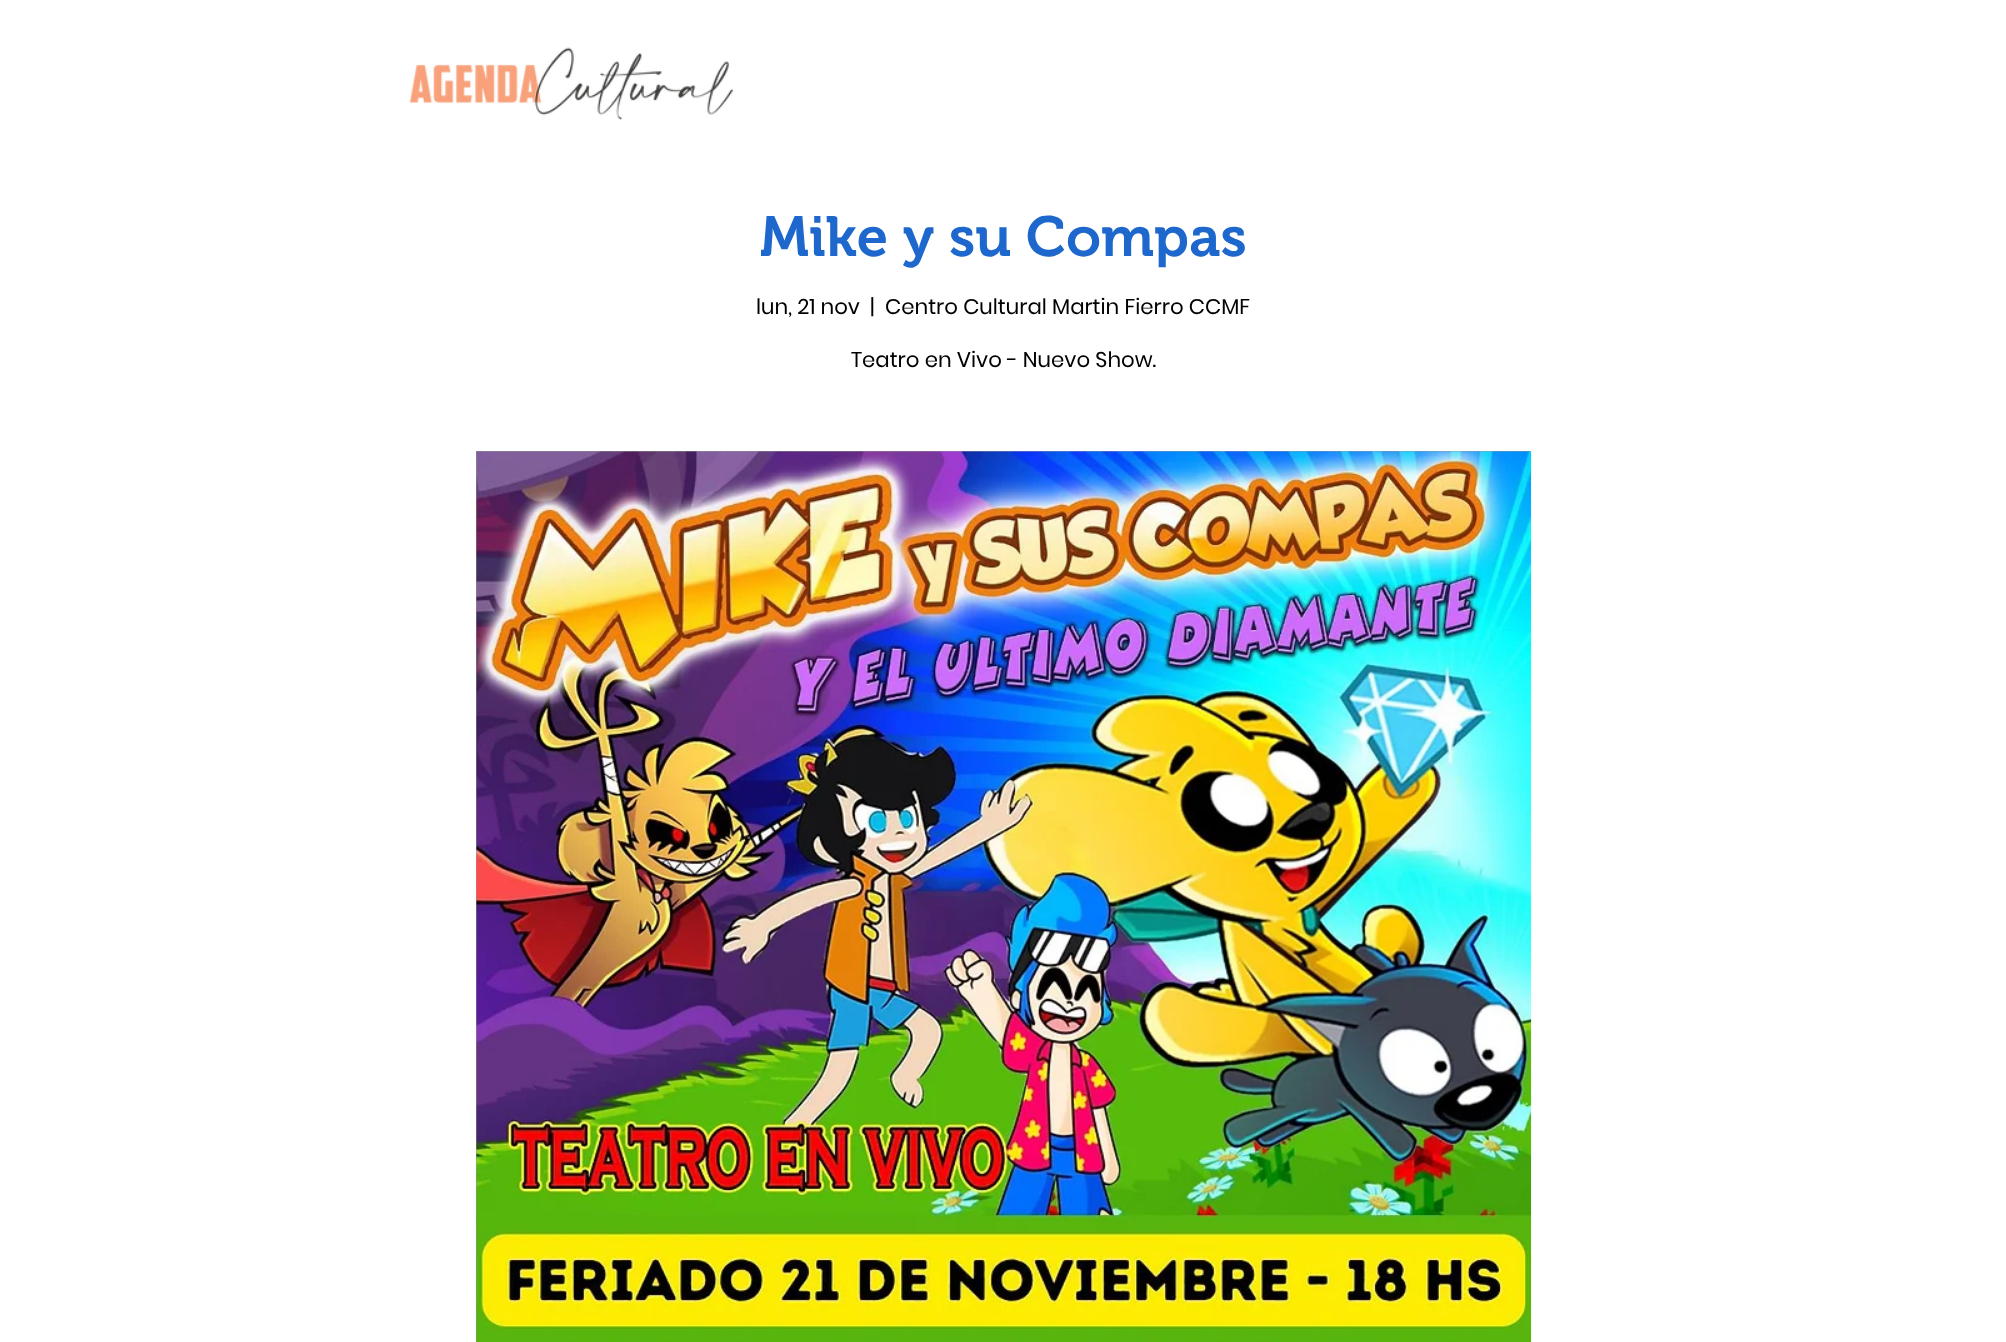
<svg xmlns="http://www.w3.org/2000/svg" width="2006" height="1342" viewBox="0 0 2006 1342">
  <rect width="100%" height="100%" fill="#ffffff"/>
  <image x="409" y="47" width="325" height="74" href="img1.png"/>
  <text x="760" y="256" font-family="'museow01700'" font-size="56.25" font-weight="600" fill="#1d67cd">Mike y su Compas</text>
  <text x="756" y="314" font-family="Poppins" font-size="21.25" fill="#000000">lun, 21 nov</text>
  <text x="870" y="314" font-family="Poppins" font-size="21.25" fill="#000000">|</text>
  <text x="885" y="314" font-family="Poppins" font-size="21.25" fill="#000000">Centro Cultural Martin Fierro CCMF</text>
  <text x="851" y="367" font-family="Poppins" font-size="21.25" fill="#000000">Teatro en Vivo - Nuevo Show.</text>
  <rect x="476" y="451" width="1055" height="891" fill="#999999"/>
  <image x="476" y="451" width="1056" height="891" href="img2.png"/>
</svg>
